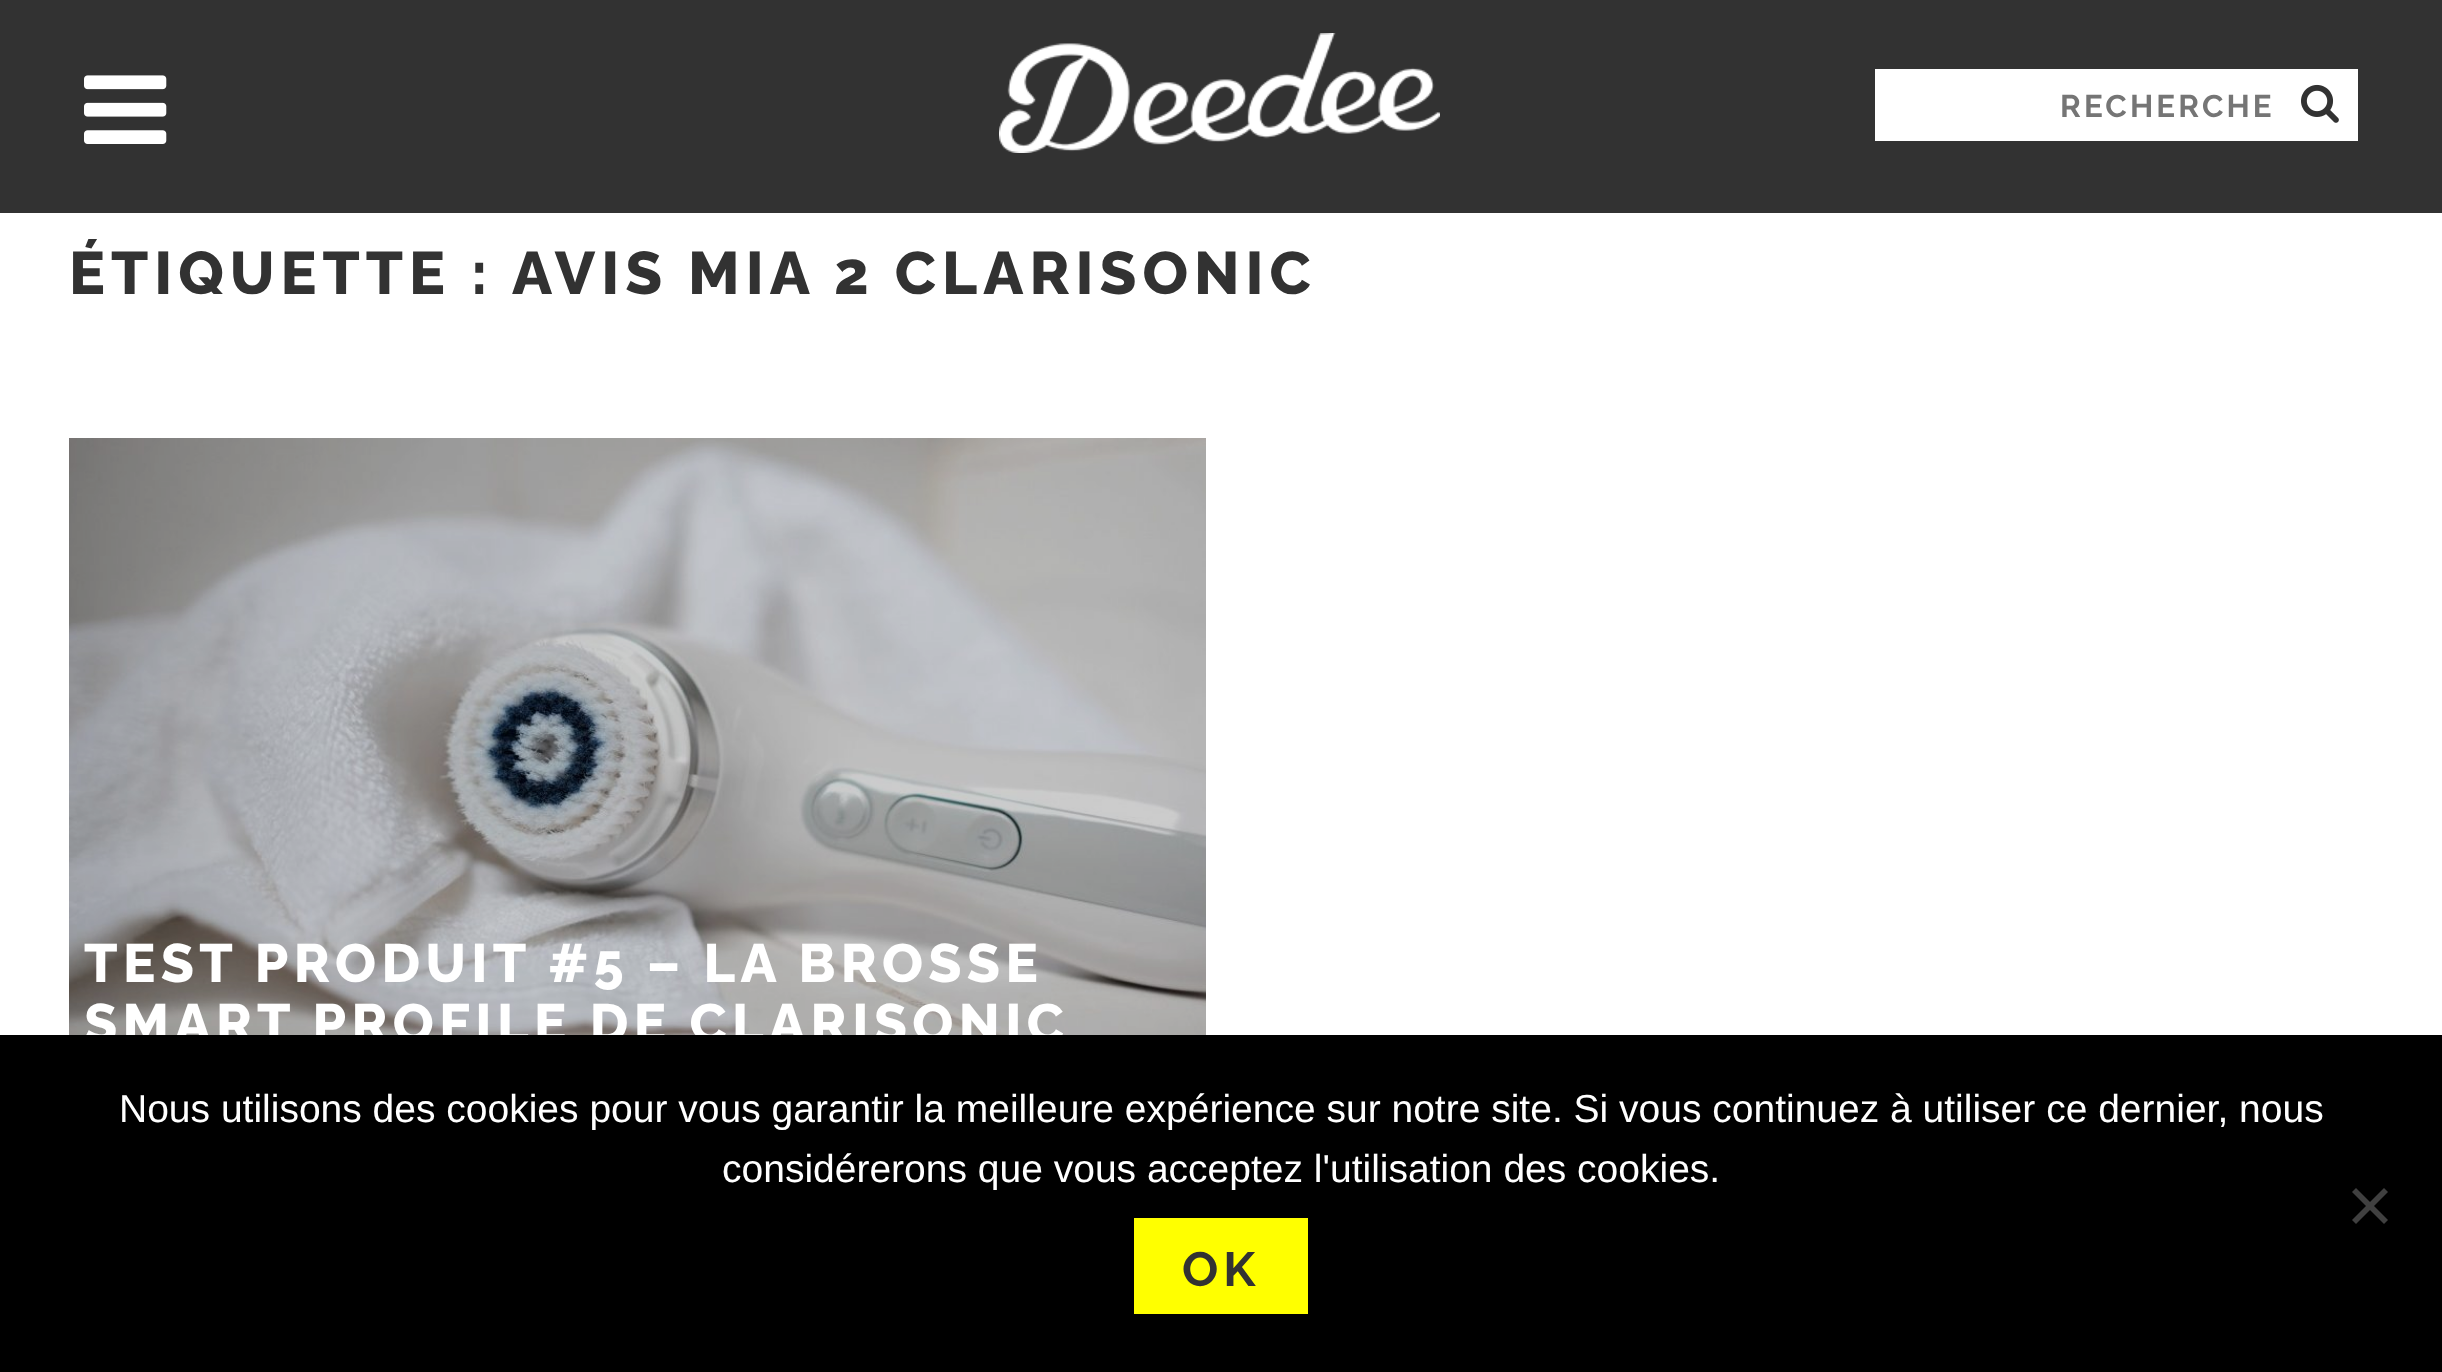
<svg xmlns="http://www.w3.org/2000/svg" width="2442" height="1372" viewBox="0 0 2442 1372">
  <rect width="100%" height="100%" fill="#323232"/>
  <image x="84" y="75" width="83" height="69" href="img1.png"/>
  <image x="999" y="33" width="441" height="120" href="img2.png"/>
  <rect x="1875" y="69" width="483" height="72" fill="#ffffff"/>
  <text x="2060" y="117" font-family="Raleway" font-size="31.25" font-weight="bold" letter-spacing="3.1" fill="#757575">RECHERCHE</text>
  <image x="2301" y="84" width="38" height="39" href="img3.png"/>
  <rect x="0" y="213" width="2442" height="822" fill="#ffffff"/>
  <text x="69" y="294" font-family="Raleway" font-size="60" font-weight="800" letter-spacing="6" fill="#323232">ÉTIQUETTE :</text>
  <text x="512" y="294" font-family="Raleway" font-size="60" font-weight="800" letter-spacing="6" fill="#323232">AVIS MIA 2 CLARISONIC</text>
  <image x="69" y="438" width="1137" height="597" href="img4.png"/>
  <text x="84" y="982" font-family="Raleway" font-size="54" font-weight="800" letter-spacing="5.4" fill="#ffffff">TEST PRODUIT #5 – LA BROSSE</text>
  <text x="84" y="1042" font-family="Raleway" font-size="54" font-weight="800" letter-spacing="5.4" fill="#ffffff">SMART PROFILE DE CLARISONIC</text>
  <rect x="0" y="1035" width="2442" height="337" fill="#000000"/>
  <text x="119" y="1122" font-family="Liberation Sans" font-size="39" fill="#ffffff">Nous utilisons des cookies pour vous garantir la meilleure expérience sur notre site. Si vous continuez à utiliser ce dernier, nous</text>
  <text x="722" y="1182" font-family="Liberation Sans" font-size="39" fill="#ffffff">considérerons que vous acceptez l'utilisation des cookies.</text>
  <path d="M2384 1188L2388 1192L2356 1224L2352 1220Z" fill="#404040"/>
  <path d="M2352 1192L2356 1188L2388 1220L2384 1224Z" fill="#404040"/>
  <rect x="1134" y="1218" width="174" height="96" fill="#ffff00"/>
  <text x="1182" y="1286" font-family="Raleway" font-size="48" font-weight="bold" letter-spacing="5" fill="#323232">OK</text>
</svg>
